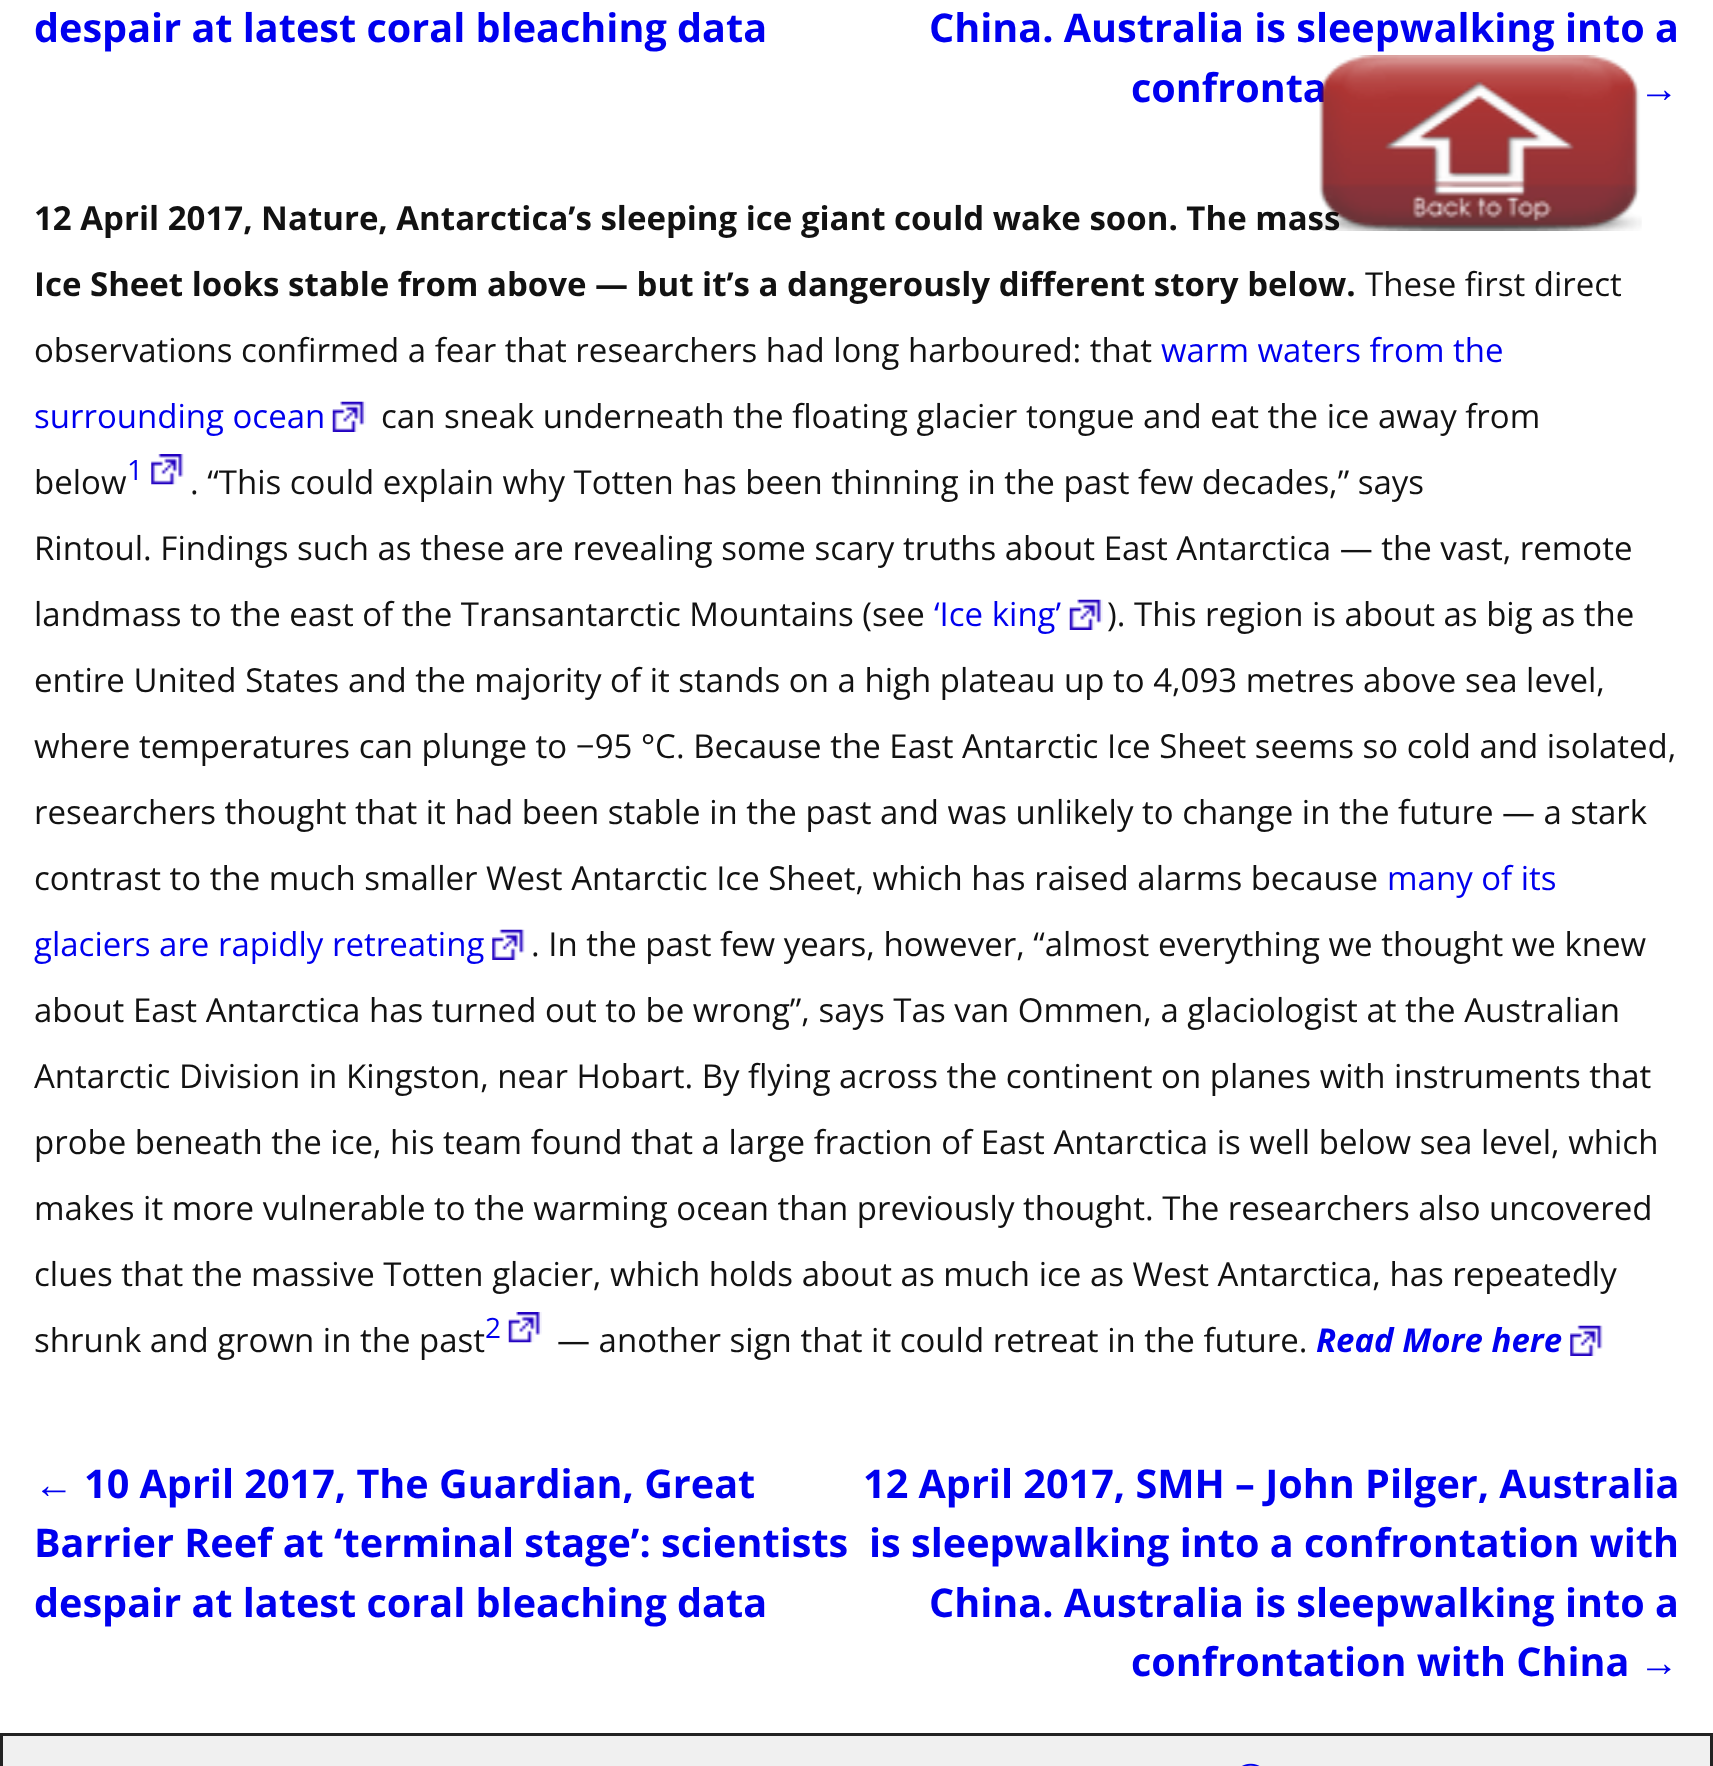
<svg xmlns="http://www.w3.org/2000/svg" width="1713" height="1766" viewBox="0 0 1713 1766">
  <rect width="100%" height="100%" fill="#ffffff"/>
  <text x="34" y="42" font-family="Open Sans" font-size="39.6" font-weight="bold" fill="#0000ee">despair at latest coral bleaching data</text>
  <text x="929" y="42" font-family="Open Sans" font-size="39.6" font-weight="bold" fill="#0000ee">China. Australia is sleepwalking into a</text>
  <text x="1131" y="102" font-family="Open Sans" font-size="39.6" font-weight="bold" fill="#0000ee">confronta</text>
  <text x="1639" y="102" font-family="Liberation Sans" font-size="39.6" fill="#0000ee">→</text>
  <text x="34" y="230" font-family="Open Sans" font-size="33" font-weight="bold" fill="#121212">12 April 2017, Nature, Antarctica’s sleeping ice giant could wake soon. The mass</text>
  <text x="34" y="296" font-family="Open Sans" font-size="33" font-weight="bold" fill="#121212">Ice Sheet looks stable from above — but it’s a dangerously different story below.</text>
  <text x="1365" y="296" font-family="Open Sans" font-size="33" fill="#121212">These first direct</text>
  <text x="34" y="362" font-family="Open Sans" font-size="33" fill="#121212">observations confirmed a fear that researchers had long harboured: that</text>
  <text x="1161" y="362" font-family="Open Sans" font-size="33" fill="#0000ee">warm waters from the</text>
  <text x="34" y="428" font-family="Open Sans" font-size="33" fill="#0000ee">surrounding ocean</text>
  <image x="332" y="401" width="34" height="31" href="img1.png"/>
  <text x="381" y="428" font-family="Open Sans" font-size="33" fill="#121212">can sneak underneath the floating glacier tongue and eat the ice away from</text>
  <text x="34" y="494" font-family="Open Sans" font-size="33" fill="#121212">below</text>
  <text x="127" y="480" font-family="Open Sans" font-size="28" fill="#0000ee">1</text>
  <image x="151" y="454" width="33" height="31" href="img2.png"/>
  <text x="190" y="494" font-family="Open Sans" font-size="33" fill="#121212">. “This could explain why Totten has been thinning in the past few decades,” says</text>
  <text x="34" y="560" font-family="Open Sans" font-size="33" fill="#121212">Rintoul. Findings such as these are revealing some scary truths about East Antarctica — the vast, remote</text>
  <text x="34" y="626" font-family="Open Sans" font-size="33" fill="#121212">landmass to the east of the Transantarctic Mountains (see</text>
  <text x="934" y="626" font-family="Open Sans" font-size="33" fill="#0000ee">‘Ice king’</text>
  <image x="1069" y="599" width="34" height="31" href="img3.png"/>
  <text x="1107" y="626" font-family="Open Sans" font-size="33" fill="#121212">). This region is about as big as the</text>
  <text x="34" y="692" font-family="Open Sans" font-size="33" fill="#121212">entire United States and the majority of it stands on a high plateau up to 4,093 metres above sea level,</text>
  <text x="34" y="758" font-family="Open Sans" font-size="33" fill="#121212">where temperatures can plunge to −95 °C. Because the East Antarctic Ice Sheet seems so cold and isolated,</text>
  <text x="34" y="824" font-family="Open Sans" font-size="33" fill="#121212">researchers thought that it had been stable in the past and was unlikely to change in the future — a stark</text>
  <text x="34" y="890" font-family="Open Sans" font-size="33" fill="#121212">contrast to the much smaller West Antarctic Ice Sheet, which has raised alarms because</text>
  <text x="1387" y="890" font-family="Open Sans" font-size="33" fill="#0000ee">many of its</text>
  <text x="34" y="956" font-family="Open Sans" font-size="33" fill="#0000ee">glaciers are rapidly retreating</text>
  <image x="492" y="929" width="33" height="31" href="img4.png"/>
  <text x="531" y="956" font-family="Open Sans" font-size="33" fill="#121212">. In the past few years, however, “almost everything we thought we knew</text>
  <text x="34" y="1022" font-family="Open Sans" font-size="33" fill="#121212">about East Antarctica has turned out to be wrong”, says Tas van Ommen, a glaciologist at the Australian</text>
  <text x="34" y="1088" font-family="Open Sans" font-size="33" fill="#121212">Antarctic Division in Kingston, near Hobart. By flying across the continent on planes with instruments that</text>
  <text x="34" y="1154" font-family="Open Sans" font-size="33" fill="#121212">probe beneath the ice, his team found that a large fraction of East Antarctica is well below sea level, which</text>
  <text x="34" y="1220" font-family="Open Sans" font-size="33" fill="#121212">makes it more vulnerable to the warming ocean than previously thought. The researchers also uncovered</text>
  <text x="34" y="1286" font-family="Open Sans" font-size="33" fill="#121212">clues that the massive Totten glacier, which holds about as much ice as West Antarctica, has repeatedly</text>
  <text x="34" y="1352" font-family="Open Sans" font-size="33" fill="#121212">shrunk and grown in the past</text>
  <text x="485" y="1338" font-family="Open Sans" font-size="28" fill="#0000ee">2</text>
  <image x="508" y="1312" width="34" height="31" href="img5.png"/>
  <text x="557" y="1352" font-family="Open Sans" font-size="33" fill="#121212">— another sign that it could retreat in the future.</text>
  <text x="1316" y="1352" font-family="Open Sans" font-size="33" font-weight="bold" font-style="italic" fill="#0000ee">Read More here</text>
  <image x="1570" y="1325" width="33" height="31" href="img6.png"/>
  <text x="34" y="1498" font-family="Liberation Sans" font-size="39.6" fill="#0000ee">←</text>
  <text x="84" y="1498" font-family="Open Sans" font-size="39.6" font-weight="bold" fill="#0000ee">10 April 2017, The Guardian, Great</text>
  <text x="34" y="1557" font-family="Open Sans" font-size="39.6" font-weight="bold" fill="#0000ee">Barrier Reef at ‘terminal stage’: scientists</text>
  <text x="34" y="1617" font-family="Open Sans" font-size="39.6" font-weight="bold" fill="#0000ee">despair at latest coral bleaching data</text>
  <text x="863" y="1498" font-family="Open Sans" font-size="39.6" font-weight="bold" fill="#0000ee">12 April 2017, SMH – John Pilger, Australia</text>
  <text x="869" y="1557" font-family="Open Sans" font-size="39.6" font-weight="bold" fill="#0000ee">is sleepwalking into a confrontation with</text>
  <text x="929" y="1617" font-family="Open Sans" font-size="39.6" font-weight="bold" fill="#0000ee">China. Australia is sleepwalking into a</text>
  <text x="1131" y="1676" font-family="Open Sans" font-size="39.6" font-weight="bold" fill="#0000ee">confrontation with China</text>
  <text x="1639" y="1676" font-family="Liberation Sans" font-size="39.6" fill="#0000ee">→</text>
  <rect x="1.5" y="1734.5" width="1710" height="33" fill="#f0f0f0" stroke="#222222" stroke-width="3"/>
  <image x="1242" y="1763" width="18" height="3" href="img7.png"/>
  <image x="1311" y="55" width="331" height="176" href="img8.png"/>
</svg>
